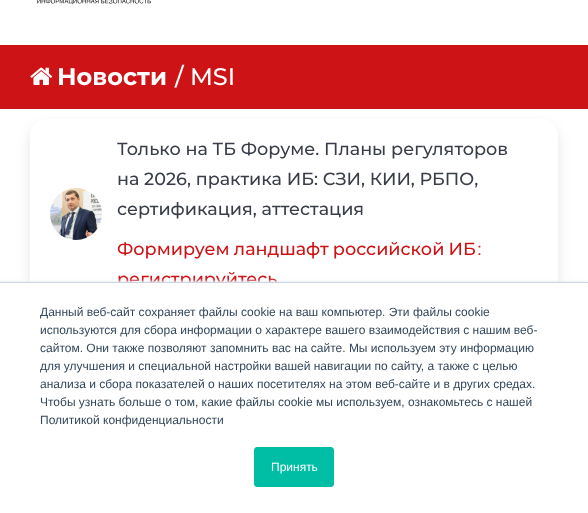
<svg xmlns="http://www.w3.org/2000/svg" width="588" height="513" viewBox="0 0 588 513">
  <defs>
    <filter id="blur1" x="-50%" y="-200%" width="200%" height="500%"><feGaussianBlur stdDeviation="4"/></filter>
    <filter id="blur2" x="-50%" y="-200%" width="200%" height="500%"><feGaussianBlur stdDeviation="8"/></filter>
    <filter id="blur3" x="-50%" y="-200%" width="200%" height="500%"><feGaussianBlur stdDeviation="1.5"/></filter>
  </defs>
  <rect width="100%" height="100%" fill="#ffffff"/>
  <image x="37" y="0" width="114" height="5" href="img1.png"/>
  <rect x="0" y="45" width="588" height="64" fill="#cd1316"/>
  <image x="30" y="67" width="23" height="18" href="img2.png"/>
  <text x="57" y="85" font-family="Montserrat" font-size="24" font-weight="bold" fill="#ffffff">Новости</text>
  <text x="175" y="85" font-family="Montserrat" font-size="24" font-weight="500" fill="#ffffff">/ MSI</text>
  <rect x="30" y="123" width="528" height="190" rx="16" fill="#222326" fill-opacity="0.05" filter="url(#blur1)"/>
  <rect x="30" y="127" width="528" height="190" rx="16" fill="#222326" fill-opacity="0.05" filter="url(#blur2)"/>
  <rect x="30" y="119" width="528" height="190" rx="16" fill="#ffffff"/>
  <image x="50" y="188" width="52" height="52" href="img3.png"/>
  <text x="117" y="155" font-family="Montserrat" font-size="17.6" font-weight="500" fill="#383d47">Только на ТБ Форуме. Планы регуляторов</text>
  <text x="117" y="185" font-family="Montserrat" font-size="17.6" font-weight="500" fill="#383d47">на 2026, практика ИБ: СЗИ, КИИ, РБПО,</text>
  <text x="117" y="215" font-family="Montserrat" font-size="17.6" font-weight="500" fill="#383d47">сертификация, аттестация</text>
  <text x="117" y="255" word-spacing="-0.5" font-family="Montserrat" font-size="17.6" font-weight="500" fill="#cd1316">Формируем ландшафт российской ИБ</text>
  <text x="477" y="255" font-family="Liberation Sans" font-size="17.6" fill="#cd1316">:</text>
  <text x="117" y="285" font-family="Montserrat" font-size="17.6" font-weight="500" fill="#cd1316">регистрируйтесь</text>
  <rect x="0" y="281" width="588" height="231" fill="#eaf0f6" filter="url(#blur3)"/>
  <rect x="0" y="283" width="588" height="230" fill="#ffffff"/>
  <rect x="0" y="282" width="588" height="1" fill="#cbd6e2"/>
  <text x="40" y="316" font-family="Liberation Sans" font-size="12" fill="#33475b">Данный веб-сайт сохраняет файлы cookie на ваш компьютер. Эти файлы cookie</text>
  <text x="40" y="334" font-family="Liberation Sans" font-size="12" fill="#33475b">используются для сбора информации о характере вашего взаимодействия с нашим веб-</text>
  <text x="40" y="352" font-family="Liberation Sans" font-size="12" fill="#33475b">сайтом. Они также позволяют запомнить вас на сайте. Мы используем эту информацию</text>
  <text x="40" y="370" font-family="Liberation Sans" font-size="12" fill="#33475b">для улучшения и специальной настройки вашей навигации по сайту, а также с целью</text>
  <text x="40" y="388" font-family="Liberation Sans" font-size="12" fill="#33475b">анализа и сбора показателей о наших посетителях на этом веб-сайте и в других средах.</text>
  <text x="40" y="406" font-family="Liberation Sans" font-size="12" fill="#33475b">Чтобы узнать больше о том, какие файлы cookie мы используем, ознакомьтесь с нашей</text>
  <text x="40" y="424" font-family="Liberation Sans" font-size="12" fill="#33475b">Политикой конфиденциальности</text>
  <rect x="254.5" y="447.5" width="79" height="39" rx="2.5" fill="#00bda5" stroke="#00bda5"/>
  <text x="271" y="471" font-family="Liberation Sans" font-size="12" fill="#ffffff">Принять</text>
</svg>
